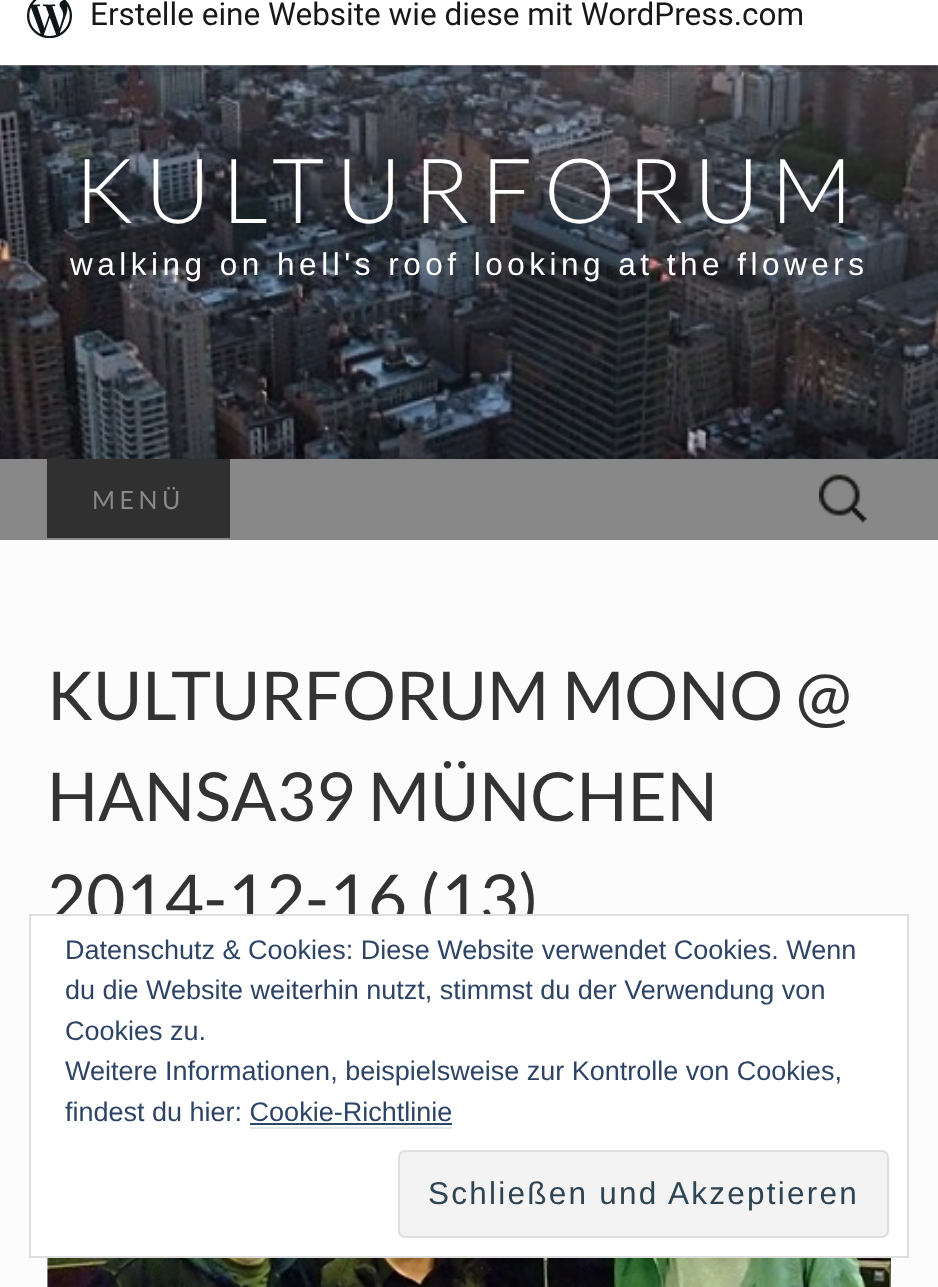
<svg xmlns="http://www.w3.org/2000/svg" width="938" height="1287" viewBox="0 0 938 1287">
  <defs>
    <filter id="blur1" x="-50%" y="-200%" width="200%" height="500%"><feGaussianBlur stdDeviation="2"/></filter>
  </defs>
  <rect width="100%" height="100%" fill="#fcfcfc"/>
  <image x="0" y="65" width="938" height="394" href="img2.png"/>
  <rect x="0" y="-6" width="938" height="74" fill="#000000" fill-opacity="0.05" filter="url(#blur1)"/>
  <path d="M2 65V72H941V-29H938V65Z" fill="#000000" fill-opacity="0.08"/>
  <rect x="0" y="0" width="938" height="65" fill="#ffffff"/>
  <image x="27" y="0" width="45" height="38" href="img1.png"/>
  <text x="90" y="25" font-family="Roboto" font-size="31.5" fill="#171717">Erstelle eine Website wie diese mit WordPress.com</text>
  <text x="74" y="223" font-family="Lato" font-size="90" font-weight="300" letter-spacing="11.25" fill="#ffffff">KULTURFORUM</text>
  <text x="70" y="275" font-family="Liberation Sans" font-size="31.5" letter-spacing="4.5" fill="#ffffff">walking on hell's roof looking at the flowers</text>
  <rect x="0" y="459" width="938" height="81" fill="#888888"/>
  <rect x="47" y="459" width="183" height="79" fill="#303030"/>
  <text x="92" y="509" font-family="Lato" font-size="25" letter-spacing="4.5" fill="#888888">MENÜ</text>
  <image x="819" y="474" width="48" height="49" href="img3.png"/>
  <text x="47" y="720" font-family="Lato" font-size="67.5" fill="#333333">KULTURFORUM MONO @</text>
  <text x="47" y="821" font-family="Lato" font-size="67.5" fill="#333333">HANSA39 MÜNCHEN</text>
  <text x="47" y="923" font-family="Lato" font-size="67.5" fill="#333333">2014-12-16 (13)</text>
  <image x="47" y="1258" width="844" height="29" href="img4.png"/>
  <rect x="30" y="915" width="878" height="342" fill="#ffffff" stroke="#dedede" stroke-width="2"/>
  <text x="65" y="959" font-family="Liberation Sans" font-size="27" fill="#2e4467">Datenschutz &amp; Cookies: Diese Website verwendet Cookies. Wenn</text>
  <text x="65" y="999" font-family="Liberation Sans" font-size="27" fill="#2e4467">du die Website weiterhin nutzt, stimmst du der Verwendung von</text>
  <text x="65" y="1040" font-family="Liberation Sans" font-size="27" fill="#2e4467">Cookies zu.</text>
  <text x="65" y="1080" font-family="Liberation Sans" font-size="27" fill="#2e4467">Weitere Informationen, beispielsweise zur Kontrolle von Cookies,</text>
  <text x="65" y="1121" font-family="Liberation Sans" font-size="27" fill="#2e4467">findest du hier: Cookie-Richtlinie</text>
  <rect x="250" y="1123" width="202" height="2" fill="#2e4467"/>
  <rect x="250" y="1127" width="202" height="2" fill="#e6e6e6"/>
  <rect x="399" y="1151" width="489" height="86" rx="6" fill="#f3f3f3" stroke="#dedede" stroke-width="2"/>
  <text x="428" y="1204" font-family="Liberation Sans" font-size="31.5" letter-spacing="2.25" fill="#2e4453">Schließen und Akzeptieren</text>
</svg>
